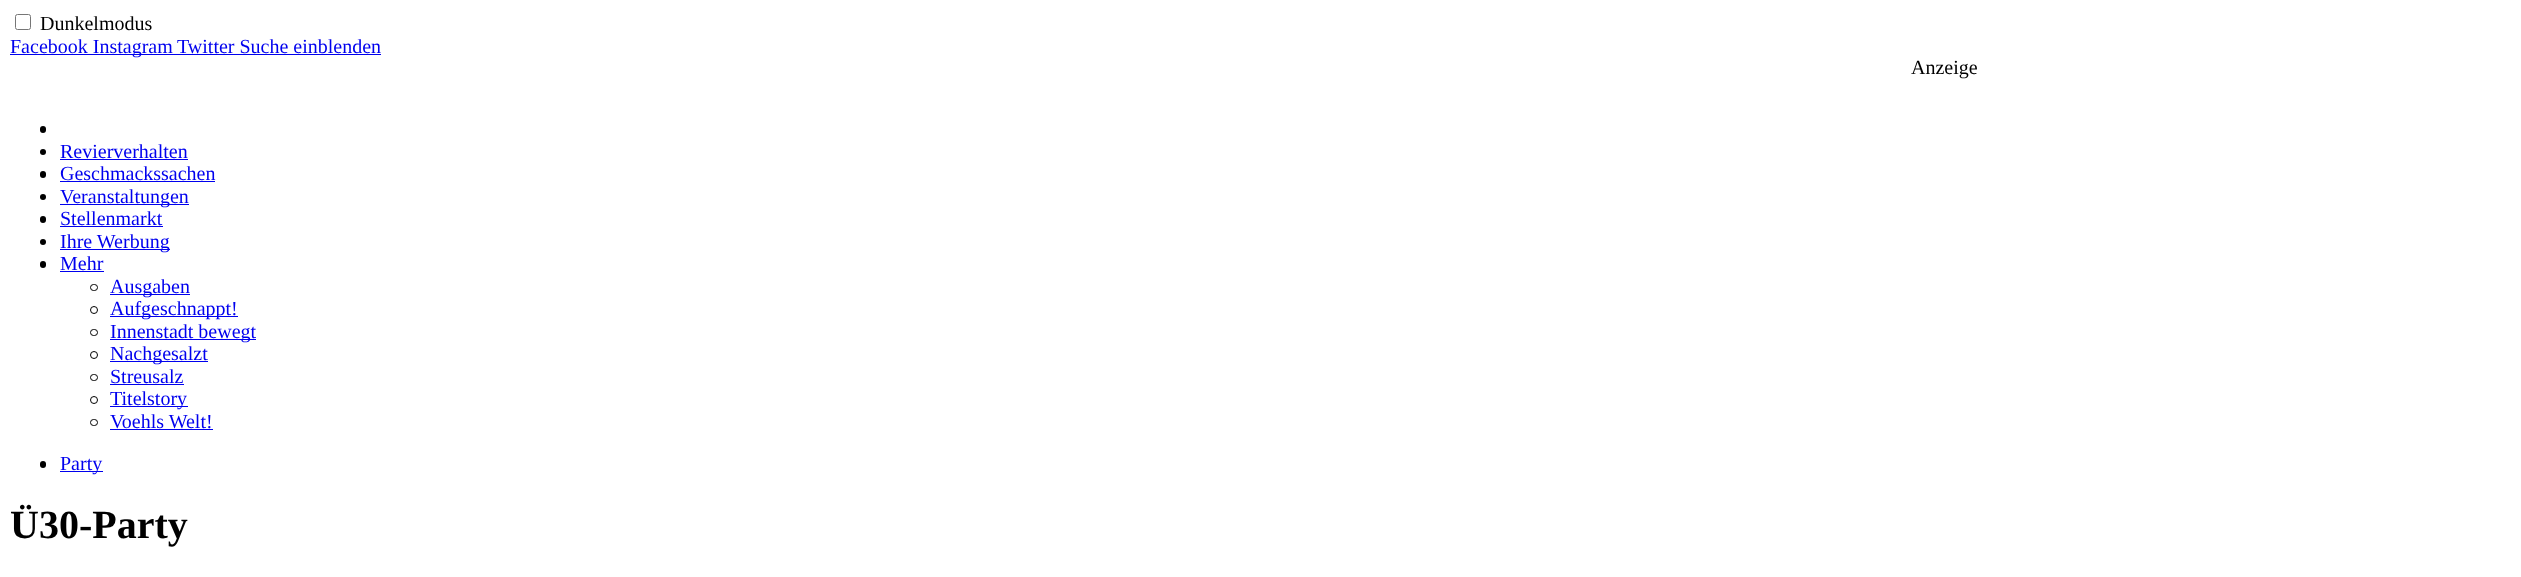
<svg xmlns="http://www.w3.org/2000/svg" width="2521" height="577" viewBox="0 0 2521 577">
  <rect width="100%" height="100%" fill="#ffffff"/>
  <rect x="15.5" y="14.5" width="15" height="15" rx="2" fill="none" stroke="#767676"/>
  <text x="40" y="30" font-family="Liberation Serif" font-size="20" fill="#000000">Dunkelmodus</text>
  <rect x="10" y="54" width="371" height="1" fill="#0000ee"/>
  <text x="10" y="53" font-family="Liberation Serif" font-size="20" fill="#0000ee">Facebook Instagram</text>
  <text x="177" y="53" font-family="Liberation Serif" font-size="20" fill="#0000ee">Twitter Suche einblenden</text>
  <text x="1911" y="74" font-family="Liberation Serif" font-size="20" fill="#000000">Anzeige</text>
  <rect x="40" y="126" width="6" height="7" rx="3" fill="#000000"/>
  <circle cx="43" cy="152" r="3" fill="#000000"/>
  <text x="60" y="158" font-family="Liberation Serif" font-size="20" fill="#0000ee">Revierverhalten</text>
  <rect x="60" y="159" width="128" height="1" fill="#0000ee"/>
  <rect x="40" y="171" width="6" height="7" rx="3" fill="#000000"/>
  <text x="60" y="180" font-family="Liberation Serif" font-size="20" fill="#0000ee">Geschmackssachen</text>
  <rect x="60" y="181" width="155" height="1" fill="#0000ee"/>
  <circle cx="43" cy="197" r="3" fill="#000000"/>
  <rect x="60" y="204" width="129" height="1" fill="#0000ee"/>
  <text x="60" y="203" font-family="Liberation Serif" font-size="20" fill="#0000ee">Veranstaltungen</text>
  <rect x="40" y="216" width="6" height="7" rx="3" fill="#000000"/>
  <text x="60" y="225" font-family="Liberation Serif" font-size="20" fill="#0000ee">Stellenmarkt</text>
  <rect x="60" y="226" width="103" height="1" fill="#0000ee"/>
  <circle cx="43" cy="242" r="3" fill="#000000"/>
  <rect x="60" y="249" width="110" height="1" fill="#0000ee"/>
  <text x="60" y="248" font-family="Liberation Serif" font-size="20" fill="#0000ee">Ihre Werbung</text>
  <rect x="40" y="261" width="6" height="7" rx="3" fill="#000000"/>
  <text x="60" y="270" font-family="Liberation Serif" font-size="20" fill="#0000ee">Mehr</text>
  <rect x="60" y="271" width="44" height="1" fill="#0000ee"/>
  <rect x="90.5" y="284.5" width="7" height="6" rx="3" fill="none" stroke="#000000"/>
  <rect x="110" y="294" width="80" height="1" fill="#0000ee"/>
  <text x="110" y="293" font-family="Liberation Serif" font-size="20" fill="#0000ee">Ausgaben</text>
  <circle cx="94" cy="310" r="3.5" fill="none" stroke="#000000"/>
  <rect x="110" y="316" width="128" height="1" fill="#0000ee"/>
  <text x="110" y="315" font-family="Liberation Serif" font-size="20" fill="#0000ee">Aufgeschnappt!</text>
  <rect x="90.5" y="329.5" width="7" height="6" rx="3" fill="none" stroke="#000000"/>
  <rect x="110" y="339" width="146" height="1" fill="#0000ee"/>
  <text x="110" y="338" font-family="Liberation Serif" font-size="20" fill="#0000ee">Innenstadt bewegt</text>
  <circle cx="94" cy="355" r="3.5" fill="none" stroke="#000000"/>
  <rect x="110" y="361" width="98" height="1" fill="#0000ee"/>
  <text x="110" y="360" font-family="Liberation Serif" font-size="20" fill="#0000ee">Nachgesalzt</text>
  <rect x="90.5" y="374.5" width="7" height="6" rx="3" fill="none" stroke="#000000"/>
  <text x="110" y="383" font-family="Liberation Serif" font-size="20" fill="#0000ee">Streusalz</text>
  <rect x="110" y="384" width="74" height="1" fill="#0000ee"/>
  <circle cx="94" cy="400" r="3.5" fill="none" stroke="#000000"/>
  <rect x="110" y="406" width="78" height="1" fill="#0000ee"/>
  <text x="110" y="405" font-family="Liberation Serif" font-size="20" fill="#0000ee">Titelstory</text>
  <rect x="90.5" y="419.5" width="7" height="6" rx="3" fill="none" stroke="#000000"/>
  <text x="110" y="428" font-family="Liberation Serif" font-size="20" fill="#0000ee">Voehls Welt!</text>
  <rect x="110" y="429" width="103" height="1" fill="#0000ee"/>
  <rect x="40" y="461" width="6" height="7" rx="3" fill="#000000"/>
  <rect x="60" y="471" width="43" height="1" fill="#0000ee"/>
  <text x="60" y="470" font-family="Liberation Serif" font-size="20" fill="#0000ee">Party</text>
  <text x="10" y="538" font-family="Liberation Serif" font-size="40" font-weight="bold" fill="#000000">Ü30-Party</text>
</svg>
